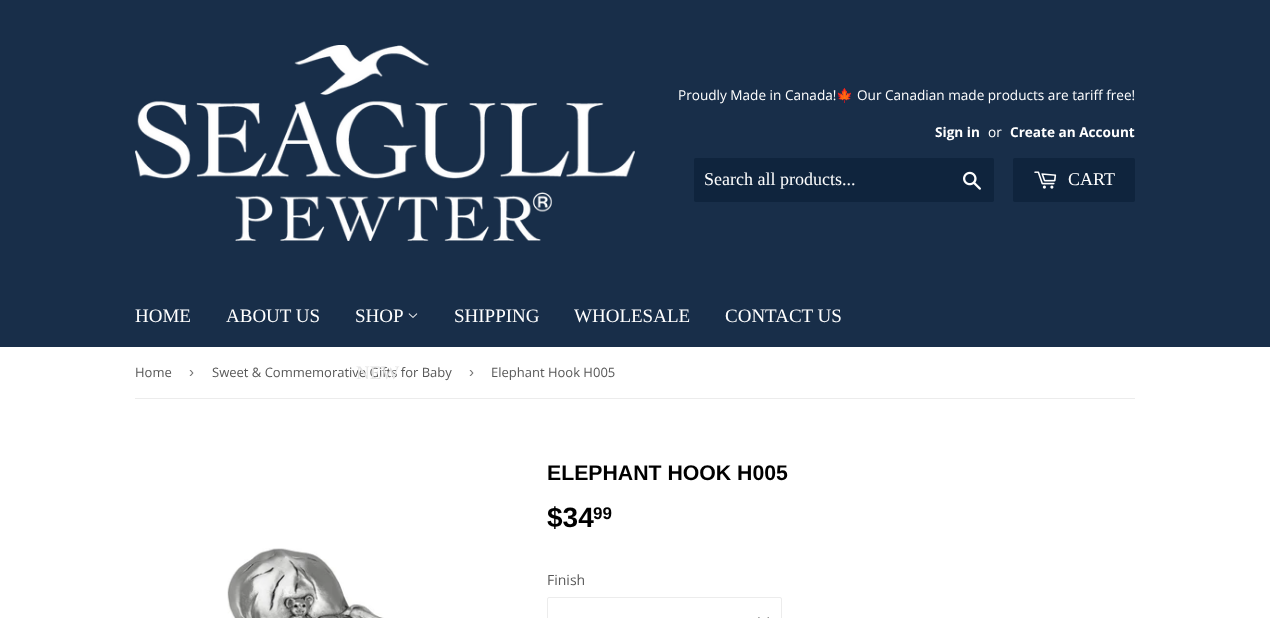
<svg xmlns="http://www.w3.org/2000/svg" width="1270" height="618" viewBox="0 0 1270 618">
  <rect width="100%" height="100%" fill="#ffffff"/>
  <rect x="0" y="0" width="1270" height="347" fill="#182e49"/>
  <image x="135" y="45" width="500" height="196" href="img1.png"/>
  <text x="678" y="100" font-family="Open Sans" font-size="13.6" fill="#ffffff">Proudly Made in Canada!</text>
  <text x="836" y="100" font-family="Noto Color Emoji" font-size="13.6" fill="#ffffff">🍁</text>
  <text x="857" y="100" font-family="Open Sans" font-size="13.6" fill="#ffffff">Our Canadian made products are tariff free!</text>
  <text x="935" y="137" font-family="Open Sans" font-size="13.6" font-weight="bold" fill="#ffffff">Sign in</text>
  <text x="988" y="137" font-family="Open Sans" font-size="13.6" fill="#ffffff">or</text>
  <text x="1010" y="137" font-family="Open Sans" font-size="13.6" font-weight="bold" fill="#ffffff">Create an Account</text>
  <rect x="694" y="158" width="300" height="44" rx="2" fill="#0f243d"/>
  <text x="704" y="185" font-family="Liberation Serif" font-size="18" fill="#ffffff">Search all products...</text>
  <image x="963" y="171" width="18" height="19" href="img2.png"/>
  <rect x="1013" y="158" width="122" height="44" rx="2" fill="#0f243d"/>
  <image x="1034" y="171" width="23" height="18" href="img3.png"/>
  <text x="1068" y="185" font-family="Liberation Serif" font-size="18" fill="#ffffff">CART</text>
  <text x="135" y="322" font-family="Liberation Serif" font-size="19" fill="#ffffff">HOME</text>
  <text x="226" y="322" font-family="Liberation Serif" font-size="19" fill="#ffffff">ABOUT US</text>
  <text x="355" y="322" font-family="Liberation Serif" font-size="19" fill="#ffffff">SHOP</text>
  <image x="408" y="313" width="10" height="5" href="img4.png"/>
  <text x="212" y="377" font-family="Open Sans" font-size="13" fill="#585858">Sweet &amp; Commemorative Gifts for Baby</text>
  <text x="356" y="379" font-family="Liberation Serif" font-size="19" fill="#e4e4e4">NEW</text>
  <text x="454" y="322" font-family="Liberation Serif" font-size="19" fill="#ffffff">SHIPPING</text>
  <text x="574" y="322" font-family="Liberation Serif" font-size="19" fill="#ffffff">WHOLESALE</text>
  <text x="725" y="322" font-family="Liberation Serif" font-size="19" fill="#ffffff">CONTACT US</text>
  <rect x="135" y="398" width="1000" height="1" fill="#ececec"/>
  <text x="135" y="377" font-family="Open Sans" font-size="13" fill="#585858">Home</text>
  <text x="189" y="377" font-family="Liberation Sans" font-size="15" fill="#767676">›</text>
  <text x="469" y="377" font-family="Liberation Sans" font-size="15" fill="#767676">›</text>
  <text x="491" y="377" font-family="Open Sans" font-size="13" fill="#585858">Elephant Hook H005</text>
  <image x="227" y="548" width="157" height="70" href="img5.png"/>
  <text x="547" y="480" font-family="Liberation Sans" font-size="21.25" font-weight="bold" fill="#000000">ELEPHANT HOOK H005</text>
  <text x="547" y="527" font-family="Liberation Sans" font-size="28" font-weight="bold" fill="#000000">$34</text>
  <text x="593" y="519" font-family="Liberation Sans" font-size="17" font-weight="bold" fill="#000000">99</text>
  <text x="547" y="585" font-family="Open Sans" font-size="14" fill="#585858">Finish</text>
  <image x="758" y="617" width="11" height="1" href="img6.png"/>
  <rect x="547.5" y="597.5" width="234" height="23" rx="1.5" fill="none" stroke="#ececec"/>
</svg>
